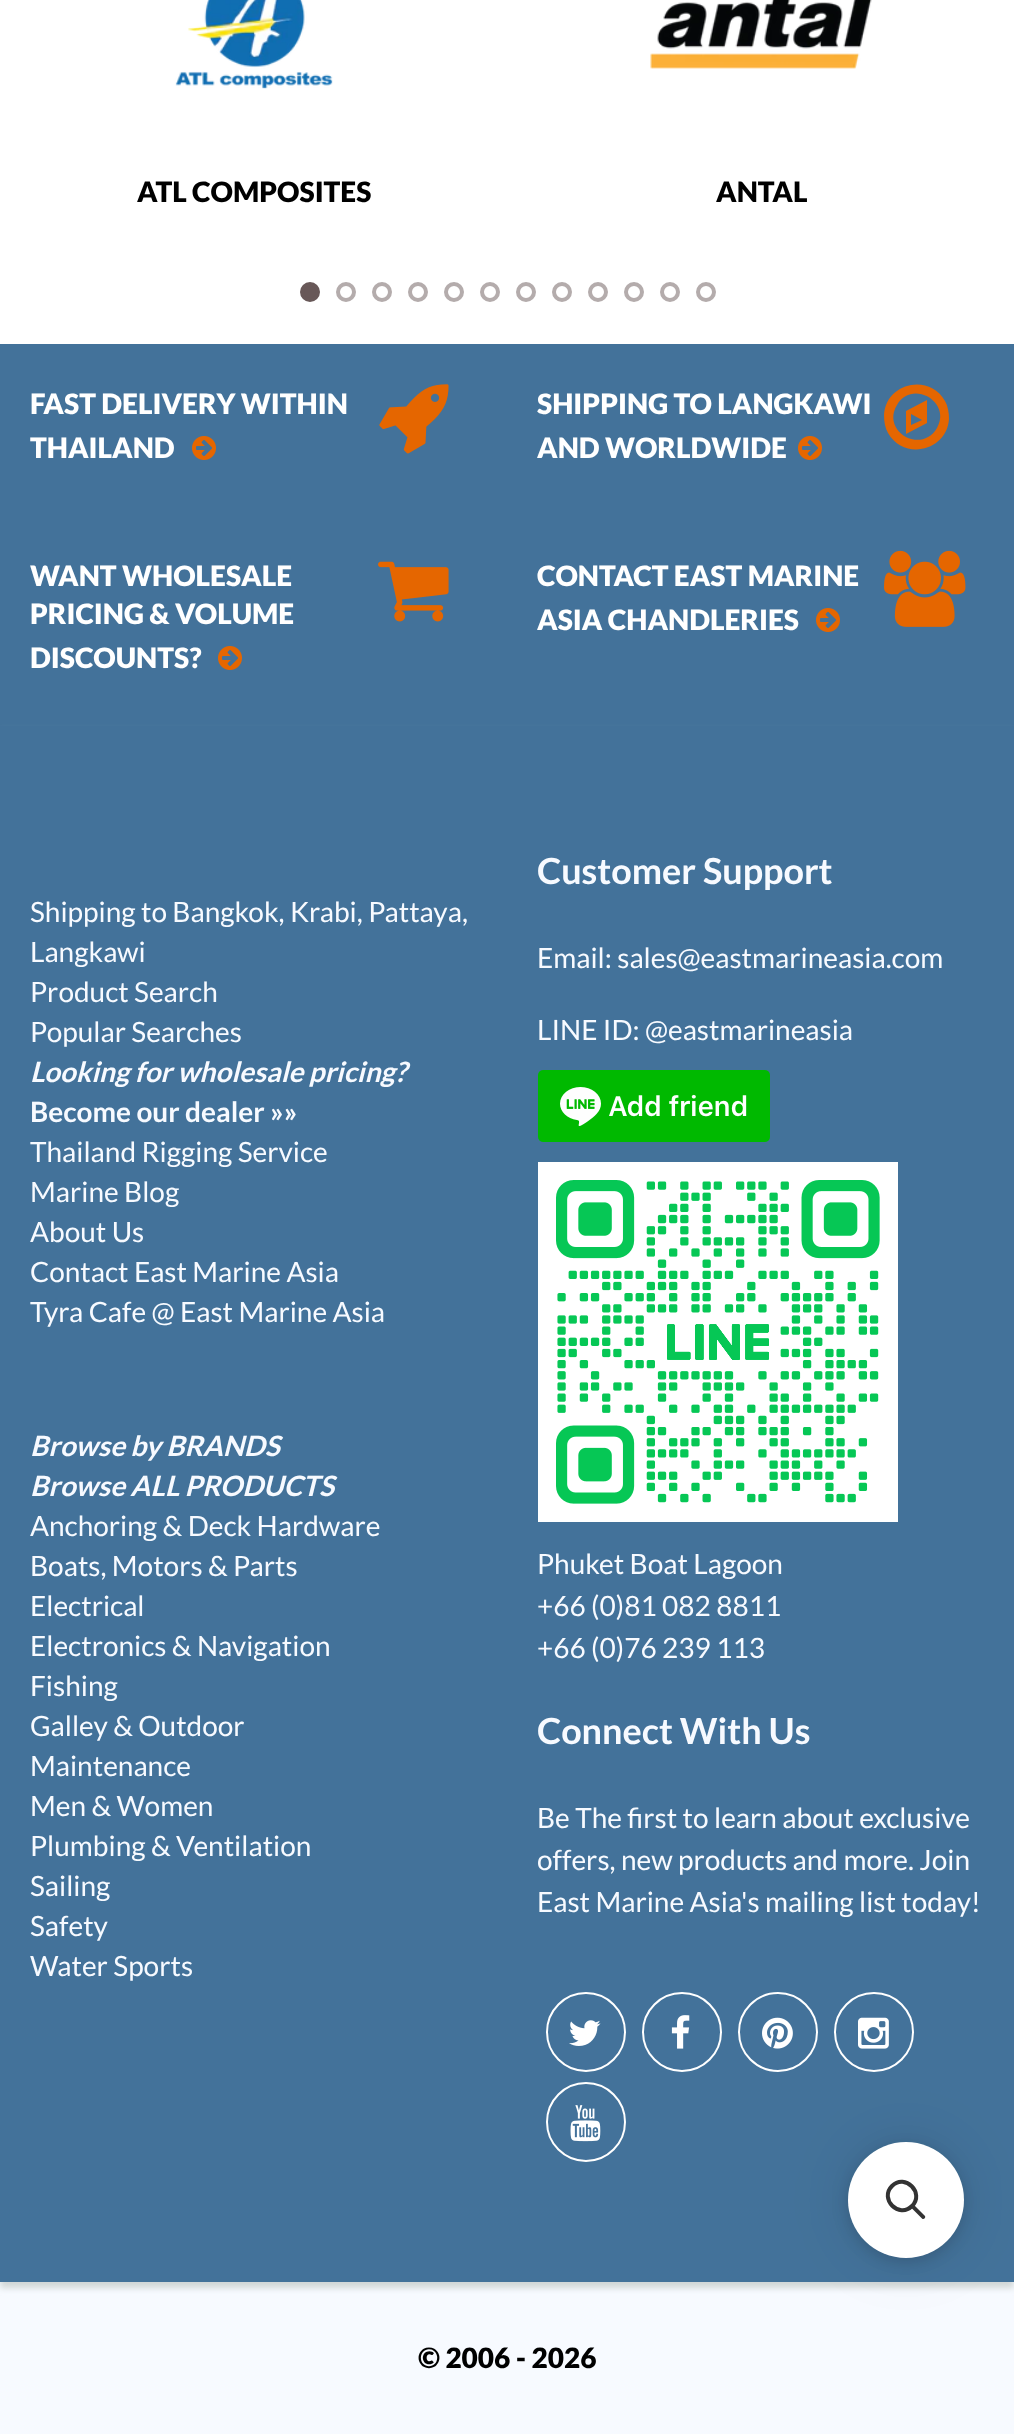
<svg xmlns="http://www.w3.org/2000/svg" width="1014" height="2434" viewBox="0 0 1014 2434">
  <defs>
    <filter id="blur1" x="-50%" y="-200%" width="200%" height="500%"><feGaussianBlur stdDeviation="3"/></filter>
    <filter id="blur2" x="-50%" y="-200%" width="200%" height="500%"><feGaussianBlur stdDeviation="8"/></filter>
    <filter id="blur3" x="-50%" y="-200%" width="200%" height="500%"><feGaussianBlur stdDeviation="30"/></filter>
  </defs>
  <rect width="100%" height="100%" fill="#ffffff"/>
  <image x="175" y="0" width="158" height="89" href="img1.png"/>
  <text x="137" y="202" font-family="Lato" font-size="28" font-weight="900" fill="#000000">ATL COMPOSITES</text>
  <image x="650" y="0" width="222" height="69" href="img2.png"/>
  <text x="716" y="202" font-family="Lato" font-size="28" font-weight="900" fill="#000000">ANTAL</text>
  <circle cx="310" cy="292" r="8" fill="#685858" stroke="#685858" stroke-width="4"/>
  <circle cx="346" cy="292" r="8" fill="none" stroke="#b4acac" stroke-width="4"/>
  <circle cx="382" cy="292" r="8" fill="none" stroke="#b4acac" stroke-width="4"/>
  <circle cx="418" cy="292" r="8" fill="none" stroke="#b4acac" stroke-width="4"/>
  <circle cx="454" cy="292" r="8" fill="none" stroke="#b4acac" stroke-width="4"/>
  <circle cx="490" cy="292" r="8" fill="none" stroke="#b4acac" stroke-width="4"/>
  <circle cx="526" cy="292" r="8" fill="none" stroke="#b4acac" stroke-width="4"/>
  <circle cx="562" cy="292" r="8" fill="none" stroke="#b4acac" stroke-width="4"/>
  <circle cx="598" cy="292" r="8" fill="none" stroke="#b4acac" stroke-width="4"/>
  <circle cx="634" cy="292" r="8" fill="none" stroke="#b4acac" stroke-width="4"/>
  <circle cx="670" cy="292" r="8" fill="none" stroke="#b4acac" stroke-width="4"/>
  <circle cx="706" cy="292" r="8" fill="none" stroke="#b4acac" stroke-width="4"/>
  <rect x="0" y="344" width="1014" height="382" fill="#43729a"/>
  <text x="30" y="414" font-family="Lato" font-size="28" font-weight="900" fill="#ffffff">FAST DELIVERY WITHIN</text>
  <text x="30" y="458" font-family="Lato" font-size="28" font-weight="900" fill="#ffffff">THAILAND</text>
  <image x="192" y="436" width="24" height="24" href="img3.png"/>
  <image x="379" y="384" width="70" height="70" href="img4.png"/>
  <text x="537" y="414" font-family="Lato" font-size="28" font-weight="900" fill="#ffffff">SHIPPING TO LANGKAWI</text>
  <text x="537" y="458" font-family="Lato" font-size="28" font-weight="900" fill="#ffffff">AND WORLDWIDE</text>
  <image x="798" y="436" width="24" height="24" href="img3.png"/>
  <path d="M888 433C885 428 884 421 884 415C886 383 929 373 945 401C948 406 949 413 949 419C947 451 904 461 888 433ZM897 405C881 431 921 455 937 428C952 402 912 379 897 405ZM906 434V411L927 400V423ZM911 425L922 420L911 414Z" fill="#e56600"/>
  <text x="30" y="586" font-family="Lato" font-size="28" font-weight="900" fill="#ffffff">WANT WHOLESALE</text>
  <text x="30" y="624" font-family="Lato" font-size="28" font-weight="900" fill="#ffffff">PRICING &amp; VOLUME</text>
  <text x="30" y="668" font-family="Lato" font-size="28" font-weight="900" fill="#ffffff">DISCOUNTS?</text>
  <image x="218" y="646" width="24" height="24" href="img3.png"/>
  <image x="378" y="561" width="71" height="61" href="img5.png"/>
  <text x="537" y="586" font-family="Lato" font-size="28" font-weight="900" fill="#ffffff">CONTACT EAST MARINE</text>
  <text x="537" y="630" font-family="Lato" font-size="28" font-weight="900" fill="#ffffff">ASIA CHANDLERIES</text>
  <image x="816" y="608" width="24" height="24" href="img3.png"/>
  <image x="884" y="550" width="82" height="77" href="img6.png"/>
  <rect x="0" y="2282" width="1014" height="152" fill="#f7faff"/>
  <rect x="0" y="732" width="1014" height="1556" fill="#d1d7d7" filter="url(#blur1)"/>
  <rect x="0" y="726" width="1014" height="1556" fill="#43729a"/>
  <text x="30" y="922" font-family="Lato" font-size="28" fill="#f7faff">Shipping to Bangkok, Krabi, Pattaya,</text>
  <text x="30" y="962" font-family="Lato" font-size="28" fill="#f7faff">Langkawi</text>
  <text x="30" y="1002" font-family="Lato" font-size="28" fill="#f7faff">Product Search</text>
  <text x="30" y="1042" font-family="Lato" font-size="28" fill="#f7faff">Popular Searches</text>
  <text x="30" y="1082" font-family="Lato" font-size="28" font-weight="bold" font-style="italic" fill="#f7faff">Looking for wholesale pricing?</text>
  <text x="30" y="1122" font-family="Lato" font-size="28" font-weight="bold" fill="#f7faff">Become our dealer »»</text>
  <text x="30" y="1162" font-family="Lato" font-size="28" fill="#f7faff">Thailand Rigging Service</text>
  <text x="30" y="1202" font-family="Lato" font-size="28" fill="#f7faff">Marine Blog</text>
  <text x="30" y="1242" font-family="Lato" font-size="28" fill="#f7faff">About Us</text>
  <text x="30" y="1282" font-family="Lato" font-size="28" fill="#f7faff">Contact East Marine Asia</text>
  <text x="30" y="1322" font-family="Lato" font-size="28" fill="#f7faff">Tyra Cafe @ East Marine Asia</text>
  <text x="30" y="1456" font-family="Lato" font-size="28" font-weight="bold" font-style="italic" fill="#f7faff">Browse by BRANDS</text>
  <text x="30" y="1496" font-family="Lato" font-size="28" font-weight="bold" font-style="italic" fill="#f7faff">Browse ALL PRODUCTS</text>
  <text x="30" y="1536" font-family="Lato" font-size="28" fill="#f7faff">Anchoring &amp; Deck Hardware</text>
  <text x="30" y="1576" font-family="Lato" font-size="28" fill="#f7faff">Boats, Motors &amp; Parts</text>
  <text x="30" y="1616" font-family="Lato" font-size="28" fill="#f7faff">Electrical</text>
  <text x="30" y="1656" font-family="Lato" font-size="28" fill="#f7faff">Electronics &amp; Navigation</text>
  <text x="30" y="1696" font-family="Lato" font-size="28" fill="#f7faff">Fishing</text>
  <text x="30" y="1736" font-family="Lato" font-size="28" fill="#f7faff">Galley &amp; Outdoor</text>
  <text x="30" y="1776" font-family="Lato" font-size="28" fill="#f7faff">Maintenance</text>
  <text x="30" y="1816" font-family="Lato" font-size="28" fill="#f7faff">Men &amp; Women</text>
  <text x="30" y="1856" font-family="Lato" font-size="28" fill="#f7faff">Plumbing &amp; Ventilation</text>
  <text x="30" y="1896" font-family="Lato" font-size="28" fill="#f7faff">Sailing</text>
  <text x="30" y="1936" font-family="Lato" font-size="28" fill="#f7faff">Safety</text>
  <text x="30" y="1976" font-family="Lato" font-size="28" fill="#f7faff">Water Sports</text>
  <text x="537" y="884" font-family="Lato" font-size="36" font-weight="bold" fill="#f7faff">Customer Support</text>
  <text x="537" y="968" font-family="Lato" font-size="28" fill="#f7faff">Email: sales@eastmarineasia.com</text>
  <text x="537" y="1040" font-family="Lato" font-size="28" fill="#f7faff">LINE ID: @eastmarineasia</text>
  <image x="538" y="1070" width="232" height="72" href="img7.png"/>
  <image x="538" y="1162" width="360" height="360" href="img8.png"/>
  <text x="537" y="1574" font-family="Lato" font-size="28" fill="#f7faff">Phuket Boat Lagoon</text>
  <text x="537" y="1616" font-family="Lato" font-size="28" fill="#f7faff">+66 (0)81 082 8811</text>
  <text x="537" y="1658" font-family="Lato" font-size="28" fill="#f7faff">+66 (0)76 239 113</text>
  <text x="537" y="1744" font-family="Lato" font-size="36" font-weight="bold" fill="#f7faff">Connect With Us</text>
  <text x="537" y="1828" font-family="Lato" font-size="28" fill="#f7faff">Be The first to learn about exclusive</text>
  <text x="537" y="1870" font-family="Lato" font-size="28" fill="#f7faff">offers, new products and more. Join</text>
  <text x="537" y="1912" font-family="Lato" font-size="28" fill="#f7faff">East Marine Asia's mailing list today!</text>
  <circle cx="586" cy="2032" r="39" fill="none" stroke="#ffffff" stroke-width="2"/>
  <image x="569" y="2020" width="32" height="26" href="img9.png"/>
  <circle cx="682" cy="2032" r="39" fill="none" stroke="#ffffff" stroke-width="2"/>
  <image x="671" y="2015" width="19" height="34" href="img10.png"/>
  <circle cx="778" cy="2032" r="39" fill="none" stroke="#ffffff" stroke-width="2"/>
  <image x="762" y="2017" width="31" height="32" href="img11.png"/>
  <circle cx="874" cy="2032" r="39" fill="none" stroke="#ffffff" stroke-width="2"/>
  <image x="858" y="2017" width="31" height="32" href="img12.png"/>
  <circle cx="586" cy="2122" r="39" fill="none" stroke="#ffffff" stroke-width="2"/>
  <image x="570" y="2105" width="31" height="37" href="img13.png"/>
  <text x="418" y="2368" font-family="Lato" font-size="28" font-weight="900" fill="#000000">© 2006 - 2026</text>
  <rect x="848" y="2146" width="116" height="116" rx="58" fill="#000000" fill-opacity="0.15" filter="url(#blur2)"/>
  <rect x="848" y="2142" width="116" height="116" rx="58" fill="#000000" fill-opacity="0.1" filter="url(#blur3)"/>
  <circle cx="906" cy="2200" r="58" fill="#ffffff"/>
  <path d="M892 2186C905 2173 925 2193 912 2206C899 2219 879 2199 892 2186Z" fill="none" stroke="#333333" stroke-width="4"/>
  <path d="M910.5 2207L913.5 2204.5L925 2216C926 2218 923.5 2220 922 2218.5Z" fill="#333333"/>
</svg>
